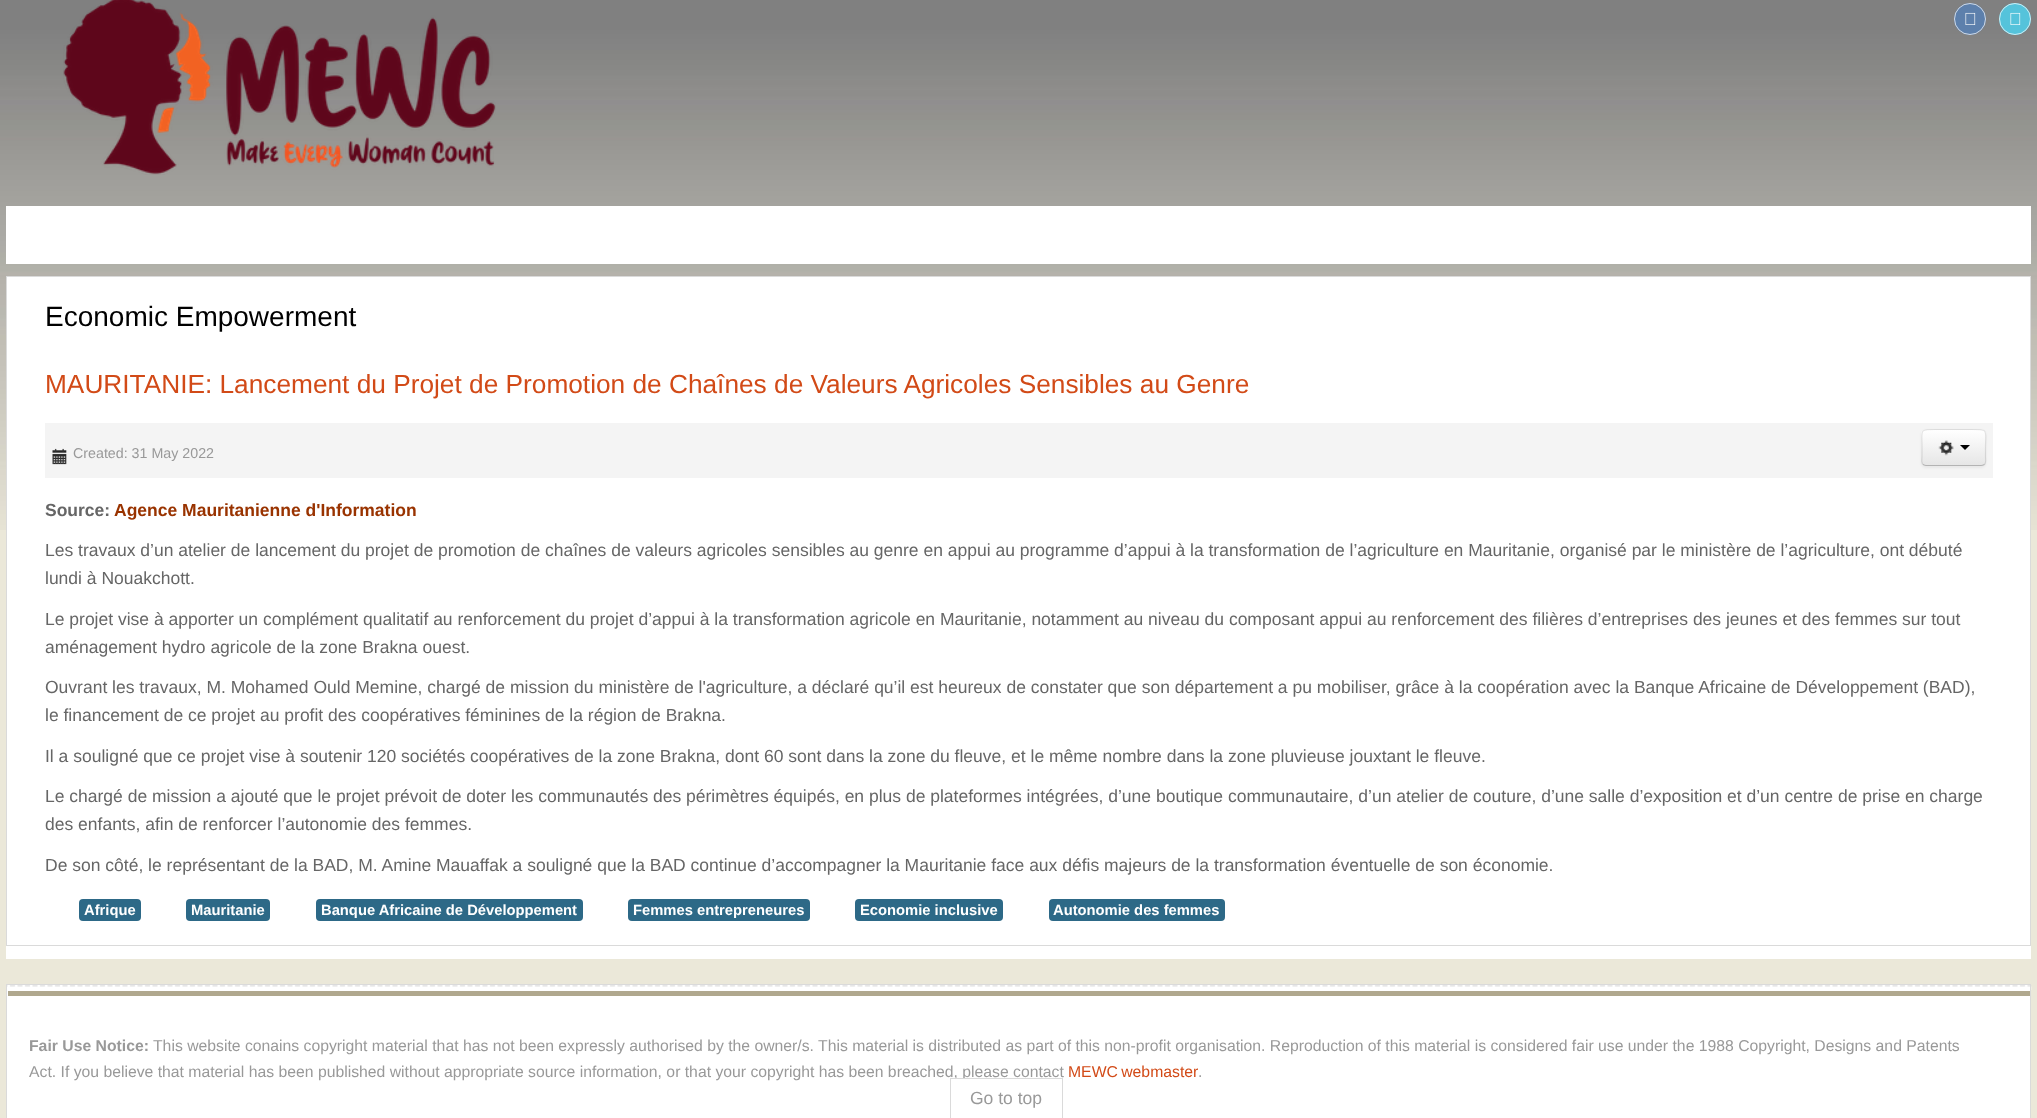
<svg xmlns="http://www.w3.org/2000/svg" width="2037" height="1118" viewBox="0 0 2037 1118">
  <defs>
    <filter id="blur1" x="-50%" y="-200%" width="200%" height="500%"><feGaussianBlur stdDeviation="1"/></filter>
    <clipPath id="clip1"><rect x="1921" y="429" width="65" height="37" rx="5"/></clipPath>
    <linearGradient id="g1" gradientUnits="userSpaceOnUse" x1="1954" y1="430" x2="1954" y2="465"><stop offset="0" stop-color="#ffffff"/><stop offset="1" stop-color="#e6e6e6"/></linearGradient>
  </defs>
  <rect width="100%" height="100%" fill="#ebe8d9"/>
  <image x="0" y="0" width="2037" height="530" href="img1.png"/>
  <image x="63" y="0" width="433" height="175" href="img2.png"/>
  <circle cx="1970" cy="19" r="16" fill="#5d80ac"/>
  <circle cx="1970" cy="19" r="15.5" fill="none" stroke="#ffffff" stroke-opacity="0.7"/>
  <image x="1965" y="12" width="11" height="13" href="img3.png"/>
  <circle cx="2015" cy="19" r="16" fill="#55c3db"/>
  <circle cx="2015" cy="19" r="15.5" fill="none" stroke="#ffffff" stroke-opacity="0.7"/>
  <image x="2010" y="12" width="11" height="13" href="img4.png"/>
  <rect x="6" y="206" width="2025" height="58" fill="#ffffff"/>
  <rect x="6" y="277" width="2025" height="682" fill="#ffffff"/>
  <rect x="6.5" y="276.5" width="2024" height="669" fill="none" stroke="#dadada"/>
  <text x="45" y="326" font-family="Liberation Sans" font-size="28" fill="#000000">Economic Empowerment</text>
  <text x="45" y="393" font-family="Liberation Sans" font-size="26.25" fill="#d24a17">MAURITANIE: Lancement du Projet de Promotion de Chaînes de Valeurs Agricoles Sensibles au Genre</text>
  <rect x="45" y="423" width="1948" height="55" fill="#f4f4f4"/>
  <image x="52" y="448" width="15" height="17" href="img5.png"/>
  <text x="73" y="458" font-family="Liberation Sans" font-size="14.25" fill="#999999">Created: 31 May 2022</text>
  <rect x="1921" y="430" width="65" height="38" rx="5" fill="#000000" fill-opacity="0.05" filter="url(#blur1)"/>
  <rect x="1921" y="429" width="65" height="37" rx="5" fill="#f5f5f5"/>
  <g clip-path="url(#clip1)">
    <rect x="1921" y="430" width="65" height="35" fill="url(#g1)"/>
  </g>
  <path d="M1984.5 464.5C1983.5 465 1982.5 465.5 1981 465.5H1926C1925 465.5 1924 465 1923 464.5" fill="none" stroke="#b3b3b3" stroke-width="1.2"/>
  <path d="M1923 464.5C1921 462.5 1922 459 1922 456.5V447.5C1922 429.5 1918.5 429.5 1935.5 429.5H1972C1989 429.5 1985.5 429.5 1985.5 447.5V456.5C1985.5 459 1986.5 462.5 1984.5 464.5" fill="none" stroke="#000000" stroke-opacity="0.1" stroke-width="1.2"/>
  <image x="1938" y="440" width="16" height="16" href="img6.png"/>
  <path d="M1960 445H1970L1965 450Z" fill="#000000"/>
  <text x="45" y="516" font-family="Liberation Sans" font-size="17.5" font-weight="bold" fill="#666666">Source:</text>
  <text x="114" y="516" font-family="Liberation Sans" font-size="17.5" font-weight="bold" fill="#993300">Agence Mauritanienne d'Information</text>
  <text x="45" y="556" font-family="Liberation Sans" font-size="17.5" fill="#666666">Les travaux d’un atelier de lancement du projet de promotion de chaînes de valeurs agricoles sensibles au genre en appui au programme d’appui à la transformation de l’agriculture en Mauritanie, organisé par le ministère de l’agriculture, ont débuté</text>
  <text x="45" y="584" font-family="Liberation Sans" font-size="17.5" fill="#666666">lundi à Nouakchott.</text>
  <text x="45" y="625" font-family="Liberation Sans" font-size="17.5" fill="#666666">Le projet vise à apporter un complément qualitatif au renforcement du projet d’appui à la transformation agricole en Mauritanie, notamment au niveau du composant appui au renforcement des filières d’entreprises des jeunes et des femmes sur tout</text>
  <text x="45" y="653" font-family="Liberation Sans" font-size="17.5" fill="#666666">aménagement hydro agricole de la zone Brakna ouest.</text>
  <text x="45" y="693" font-family="Liberation Sans" font-size="17.5" fill="#666666">Ouvrant les travaux, M. Mohamed Ould Memine, chargé de mission du ministère de l'agriculture, a déclaré qu’il est heureux de constater que son département a pu mobiliser, grâce à la coopération avec la Banque Africaine de Développement (BAD),</text>
  <text x="45" y="721" font-family="Liberation Sans" font-size="17.5" fill="#666666">le financement de ce projet au profit des coopératives féminines de la région de Brakna.</text>
  <text x="45" y="762" font-family="Liberation Sans" font-size="17.5" fill="#666666">Il a souligné que ce projet vise à soutenir 120 sociétés coopératives de la zone Brakna, dont 60 sont dans la zone du fleuve, et le même nombre dans la zone pluvieuse jouxtant le fleuve.</text>
  <text x="45" y="802" font-family="Liberation Sans" font-size="17.5" fill="#666666">Le chargé de mission a ajouté que le projet prévoit de doter les communautés des périmètres équipés, en plus de plateformes intégrées, d’une boutique communautaire, d’un atelier de couture, d’une salle d’exposition et d’un centre de prise en charge</text>
  <text x="45" y="830" font-family="Liberation Sans" font-size="17.5" fill="#666666">des enfants, afin de renforcer l’autonomie des femmes.</text>
  <text x="45" y="871" font-family="Liberation Sans" font-size="17.5" fill="#666666">De son côté, le représentant de la BAD, M. Amine Mauaffak a souligné que la BAD continue d’accompagner la Mauritanie face aux défis majeurs de la transformation éventuelle de son économie.</text>
  <rect x="79" y="899" width="62" height="22" rx="4" fill="#2d6987"/>
  <text x="84" y="915" font-family="Liberation Sans" font-size="14.75" font-weight="bold" fill="#ffffff">Afrique</text>
  <rect x="186" y="899" width="84" height="22" rx="4" fill="#2d6987"/>
  <text x="191" y="915" font-family="Liberation Sans" font-size="14.75" font-weight="bold" fill="#ffffff">Mauritanie</text>
  <rect x="316" y="899" width="267" height="22" rx="4" fill="#2d6987"/>
  <text x="321" y="915" font-family="Liberation Sans" font-size="14.75" font-weight="bold" fill="#ffffff">Banque Africaine de Développement</text>
  <rect x="628" y="899" width="182" height="22" rx="4" fill="#2d6987"/>
  <text x="633" y="915" font-family="Liberation Sans" font-size="14.75" font-weight="bold" fill="#ffffff">Femmes entrepreneures</text>
  <rect x="855" y="899" width="148" height="22" rx="4" fill="#2d6987"/>
  <text x="860" y="915" font-family="Liberation Sans" font-size="14.75" font-weight="bold" fill="#ffffff">Economie inclusive</text>
  <rect x="1049" y="899" width="176" height="22" rx="4" fill="#2d6987"/>
  <text x="1053" y="915" font-family="Liberation Sans" font-size="14.75" font-weight="bold" fill="#ffffff">Autonomie des femmes</text>
  <rect x="7" y="985" width="2023" height="133" fill="#ffffff"/>
  <image x="7" y="985" width="2025" height="5" href="img7.png"/>
  <rect x="6.5" y="984.5" width="2024" height="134" fill="none" stroke="#dadada"/>
  <rect x="8" y="991" width="2022" height="5" fill="#b0a88e"/>
  <text x="29" y="1051" font-family="Liberation Sans" font-size="15.75" font-weight="bold" fill="#999999">Fair Use Notice:</text>
  <text x="153" y="1051" font-family="Liberation Sans" font-size="15.75" fill="#999999">This website conains copyright material that has not been expressly authorised by the owner/s. This material is distributed as part of this non-profit organisation. Reproduction of this material is considered fair use under the 1988 Copyright, Designs and Patents</text>
  <text x="29" y="1077" font-family="Liberation Sans" font-size="15.75" fill="#999999">Act. If you believe that material has been published without appropriate source information, or that your copyright has been breached, please contact</text>
  <text x="1068" y="1077" word-spacing="-1" font-family="Liberation Sans" font-size="15.75" fill="#d24a17">MEWC webmaster</text>
  <text x="1198" y="1077" font-family="Liberation Sans" font-size="15.75" fill="#999999">.</text>
  <rect x="962" y="1079" width="3" height="2" fill="#ffffff"/>
  <rect x="950.5" y="1078.5" width="112" height="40" fill="none" stroke="#dadada"/>
  <text x="970" y="1104" font-family="Liberation Sans" font-size="17.5" fill="#999999">Go to top</text>
</svg>
